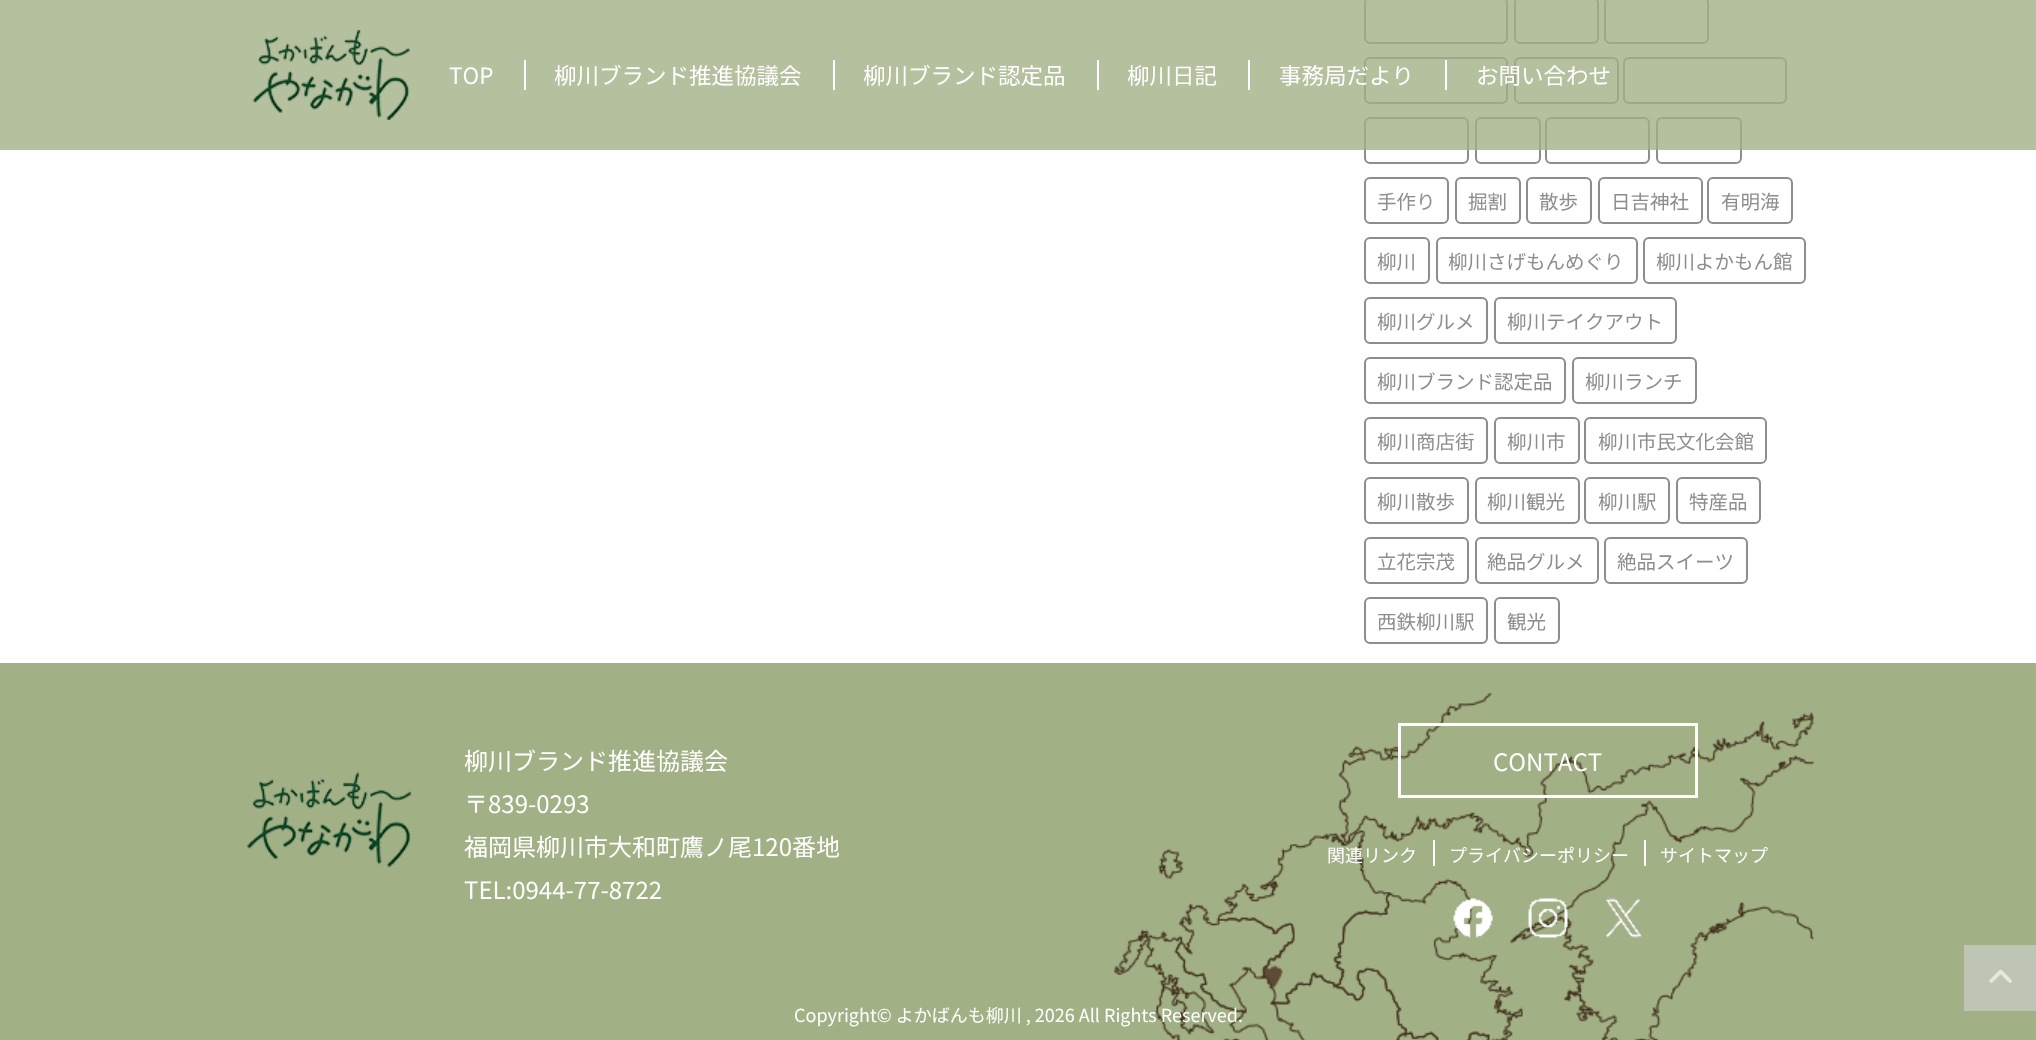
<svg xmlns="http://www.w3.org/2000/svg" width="2036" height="1040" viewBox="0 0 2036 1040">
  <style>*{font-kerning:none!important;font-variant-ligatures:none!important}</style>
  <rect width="100%" height="100%" fill="#ffffff"/>
  <rect x="1365" y="-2" width="142" height="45" rx="5" fill="none" stroke="#8d8d8d" stroke-width="2"/>
  <rect x="1515" y="-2" width="83" height="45" rx="5" fill="none" stroke="#8d8d8d" stroke-width="2"/>
  <rect x="1605" y="-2" width="103" height="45" rx="5" fill="none" stroke="#8d8d8d" stroke-width="2"/>
  <rect x="1365" y="58" width="142" height="45" rx="5" fill="none" stroke="#8d8d8d" stroke-width="2"/>
  <rect x="1515" y="58" width="103" height="45" rx="5" fill="none" stroke="#8d8d8d" stroke-width="2"/>
  <rect x="1624" y="58" width="162" height="45" rx="5" fill="none" stroke="#8d8d8d" stroke-width="2"/>
  <rect x="1365" y="118" width="103" height="45" rx="5" fill="none" stroke="#8d8d8d" stroke-width="2"/>
  <rect x="1476" y="118" width="64" height="45" rx="5" fill="none" stroke="#8d8d8d" stroke-width="2"/>
  <rect x="1546" y="118" width="103" height="45" rx="5" fill="none" stroke="#8d8d8d" stroke-width="2"/>
  <rect x="1657" y="118" width="84" height="45" rx="5" fill="none" stroke="#8d8d8d" stroke-width="2"/>
  <rect x="0" y="0" width="2036" height="150" fill="#a2b086" fill-opacity="0.8"/>
  <image x="253" y="30" width="157" height="90" href="img1.png"/>
  <rect x="524" y="60" width="2" height="30" fill="#ffffff"/>
  <text x="449" y="84" font-family="Noto Sans JP" font-size="22.5" fill="#ffffff">TOP</text>
  <rect x="833" y="60" width="2" height="30" fill="#ffffff"/>
  <text x="554" y="84" font-family="Noto Sans JP" font-size="22.5" fill="#ffffff">柳川ブランド推進協議会</text>
  <rect x="1097" y="60" width="2" height="30" fill="#ffffff"/>
  <text x="863" y="84" font-family="Noto Sans JP" font-size="22.5" fill="#ffffff">柳川ブランド認定品</text>
  <rect x="1248" y="60" width="2" height="30" fill="#ffffff"/>
  <text x="1127" y="84" font-family="Noto Sans JP" font-size="22.5" fill="#ffffff">柳川日記</text>
  <rect x="1445" y="60" width="2" height="30" fill="#ffffff"/>
  <text x="1279" y="84" font-family="Noto Sans JP" font-size="22.5" fill="#ffffff">事務局だより</text>
  <text x="1476" y="84" font-family="Noto Sans JP" font-size="22.5" fill="#ffffff">お問い合わせ</text>
  <rect x="1365" y="178" width="83" height="45" rx="5" fill="none" stroke="#8d8d8d" stroke-width="2"/>
  <text x="1377" y="209" font-family="Noto Sans JP" font-size="19.5" fill="#8d8d8d">手作り</text>
  <rect x="1456" y="178" width="64" height="45" rx="5" fill="none" stroke="#8d8d8d" stroke-width="2"/>
  <text x="1468" y="209" font-family="Noto Sans JP" font-size="19.5" fill="#8d8d8d">掘割</text>
  <rect x="1527" y="178" width="64" height="45" rx="5" fill="none" stroke="#8d8d8d" stroke-width="2"/>
  <text x="1539" y="209" font-family="Noto Sans JP" font-size="19.5" fill="#8d8d8d">散歩</text>
  <rect x="1599" y="178" width="103" height="45" rx="5" fill="none" stroke="#8d8d8d" stroke-width="2"/>
  <text x="1611" y="209" font-family="Noto Sans JP" font-size="19.5" fill="#8d8d8d">日吉神社</text>
  <rect x="1708" y="178" width="84" height="45" rx="5" fill="none" stroke="#8d8d8d" stroke-width="2"/>
  <text x="1721" y="209" font-family="Noto Sans JP" font-size="19.5" fill="#8d8d8d">有明海</text>
  <rect x="1365" y="238" width="64" height="45" rx="5" fill="none" stroke="#8d8d8d" stroke-width="2"/>
  <text x="1377" y="269" font-family="Noto Sans JP" font-size="19.5" fill="#8d8d8d">柳川</text>
  <rect x="1437" y="238" width="200" height="45" rx="5" fill="none" stroke="#8d8d8d" stroke-width="2"/>
  <text x="1448" y="269" font-family="Noto Sans JP" font-size="19.5" fill="#8d8d8d">柳川さげもんめぐり</text>
  <rect x="1644" y="238" width="161" height="45" rx="5" fill="none" stroke="#8d8d8d" stroke-width="2"/>
  <text x="1656" y="269" font-family="Noto Sans JP" font-size="19.5" fill="#8d8d8d">柳川よかもん館</text>
  <rect x="1365" y="298" width="122" height="45" rx="5" fill="none" stroke="#8d8d8d" stroke-width="2"/>
  <text x="1377" y="329" font-family="Noto Sans JP" font-size="19.5" fill="#8d8d8d">柳川グルメ</text>
  <rect x="1495" y="298" width="181" height="45" rx="5" fill="none" stroke="#8d8d8d" stroke-width="2"/>
  <text x="1507" y="329" font-family="Noto Sans JP" font-size="19.5" fill="#8d8d8d">柳川テイクアウト</text>
  <rect x="1365" y="358" width="200" height="45" rx="5" fill="none" stroke="#8d8d8d" stroke-width="2"/>
  <text x="1377" y="389" font-family="Noto Sans JP" font-size="19.5" fill="#8d8d8d">柳川ブランド認定品</text>
  <rect x="1573" y="358" width="123" height="45" rx="5" fill="none" stroke="#8d8d8d" stroke-width="2"/>
  <text x="1585" y="389" font-family="Noto Sans JP" font-size="19.5" fill="#8d8d8d">柳川ランチ</text>
  <rect x="1365" y="418" width="122" height="45" rx="5" fill="none" stroke="#8d8d8d" stroke-width="2"/>
  <text x="1377" y="449" font-family="Noto Sans JP" font-size="19.5" fill="#8d8d8d">柳川商店街</text>
  <rect x="1495" y="418" width="84" height="45" rx="5" fill="none" stroke="#8d8d8d" stroke-width="2"/>
  <text x="1507" y="449" font-family="Noto Sans JP" font-size="19.5" fill="#8d8d8d">柳川市</text>
  <rect x="1585" y="418" width="181" height="45" rx="5" fill="none" stroke="#8d8d8d" stroke-width="2"/>
  <text x="1598" y="449" font-family="Noto Sans JP" font-size="19.5" fill="#8d8d8d">柳川市民文化会館</text>
  <rect x="1365" y="478" width="103" height="45" rx="5" fill="none" stroke="#8d8d8d" stroke-width="2"/>
  <text x="1377" y="509" font-family="Noto Sans JP" font-size="19.5" fill="#8d8d8d">柳川散歩</text>
  <rect x="1476" y="478" width="103" height="45" rx="5" fill="none" stroke="#8d8d8d" stroke-width="2"/>
  <text x="1487" y="509" font-family="Noto Sans JP" font-size="19.5" fill="#8d8d8d">柳川観光</text>
  <rect x="1585" y="478" width="84" height="45" rx="5" fill="none" stroke="#8d8d8d" stroke-width="2"/>
  <text x="1598" y="509" font-family="Noto Sans JP" font-size="19.5" fill="#8d8d8d">柳川駅</text>
  <rect x="1677" y="478" width="83" height="45" rx="5" fill="none" stroke="#8d8d8d" stroke-width="2"/>
  <text x="1689" y="509" font-family="Noto Sans JP" font-size="19.5" fill="#8d8d8d">特産品</text>
  <rect x="1365" y="538" width="103" height="45" rx="5" fill="none" stroke="#8d8d8d" stroke-width="2"/>
  <text x="1377" y="569" font-family="Noto Sans JP" font-size="19.5" fill="#8d8d8d">立花宗茂</text>
  <rect x="1476" y="538" width="122" height="45" rx="5" fill="none" stroke="#8d8d8d" stroke-width="2"/>
  <text x="1487" y="569" font-family="Noto Sans JP" font-size="19.5" fill="#8d8d8d">絶品グルメ</text>
  <rect x="1605" y="538" width="142" height="45" rx="5" fill="none" stroke="#8d8d8d" stroke-width="2"/>
  <text x="1617" y="569" font-family="Noto Sans JP" font-size="19.5" fill="#8d8d8d">絶品スイーツ</text>
  <rect x="1365" y="598" width="122" height="45" rx="5" fill="none" stroke="#8d8d8d" stroke-width="2"/>
  <text x="1377" y="629" font-family="Noto Sans JP" font-size="19.5" fill="#8d8d8d">西鉄柳川駅</text>
  <rect x="1495" y="598" width="64" height="45" rx="5" fill="none" stroke="#8d8d8d" stroke-width="2"/>
  <text x="1507" y="629" font-family="Noto Sans JP" font-size="19.5" fill="#8d8d8d">観光</text>
  <rect x="0" y="663" width="2036" height="377" fill="#a2b086"/>
  <image x="1113" y="693" width="701" height="347" href="img2.png"/>
  <image x="247" y="772" width="164" height="96" href="img3.png"/>
  <text x="464" y="770" font-family="Noto Sans JP" font-size="24" fill="#ffffff">柳川ブランド推進協議会</text>
  <text x="464" y="813" font-family="Noto Sans JP" font-size="24" fill="#ffffff">〒839-0293</text>
  <text x="464" y="856" font-family="Noto Sans JP" font-size="24" fill="#ffffff">福岡県柳川市大和町鷹ノ尾120番地</text>
  <text x="464" y="899" font-family="Noto Sans JP" font-size="24" fill="#ffffff">TEL:0944-77-8722</text>
  <rect x="1399.5" y="724.5" width="297" height="72" fill="none" stroke="#ffffff" stroke-width="3"/>
  <text x="1493" y="771" font-family="Noto Sans JP" font-size="24" fill="#ffffff">CONTACT</text>
  <text x="1327" y="862" font-family="Noto Sans JP" font-size="18" fill="#ffffff">関連リンク</text>
  <rect x="1433" y="840" width="2" height="26" fill="#ffffff"/>
  <text x="1449" y="862" font-family="Noto Sans JP" font-size="18" fill="#ffffff">プライバシーポリシー</text>
  <rect x="1644" y="840" width="2" height="26" fill="#ffffff"/>
  <text x="1660" y="862" font-family="Noto Sans JP" font-size="18" fill="#ffffff">サイトマップ</text>
  <image x="1453" y="898" width="40" height="40" href="img4.png"/>
  <image x="1528" y="898" width="40" height="40" href="img5.png"/>
  <image x="1606" y="898" width="36" height="40" href="img6.png"/>
  <text x="794" y="1022" font-family="Noto Sans JP" font-size="18" fill="#ffffff">Copyright© よかばんも柳川 , 2026 All Rights Reserved.</text>
  <rect x="1964" y="945" width="72" height="66" fill="#bfc5b4"/>
  <image x="1989" y="969" width="23" height="14" href="img7.png"/>
</svg>
